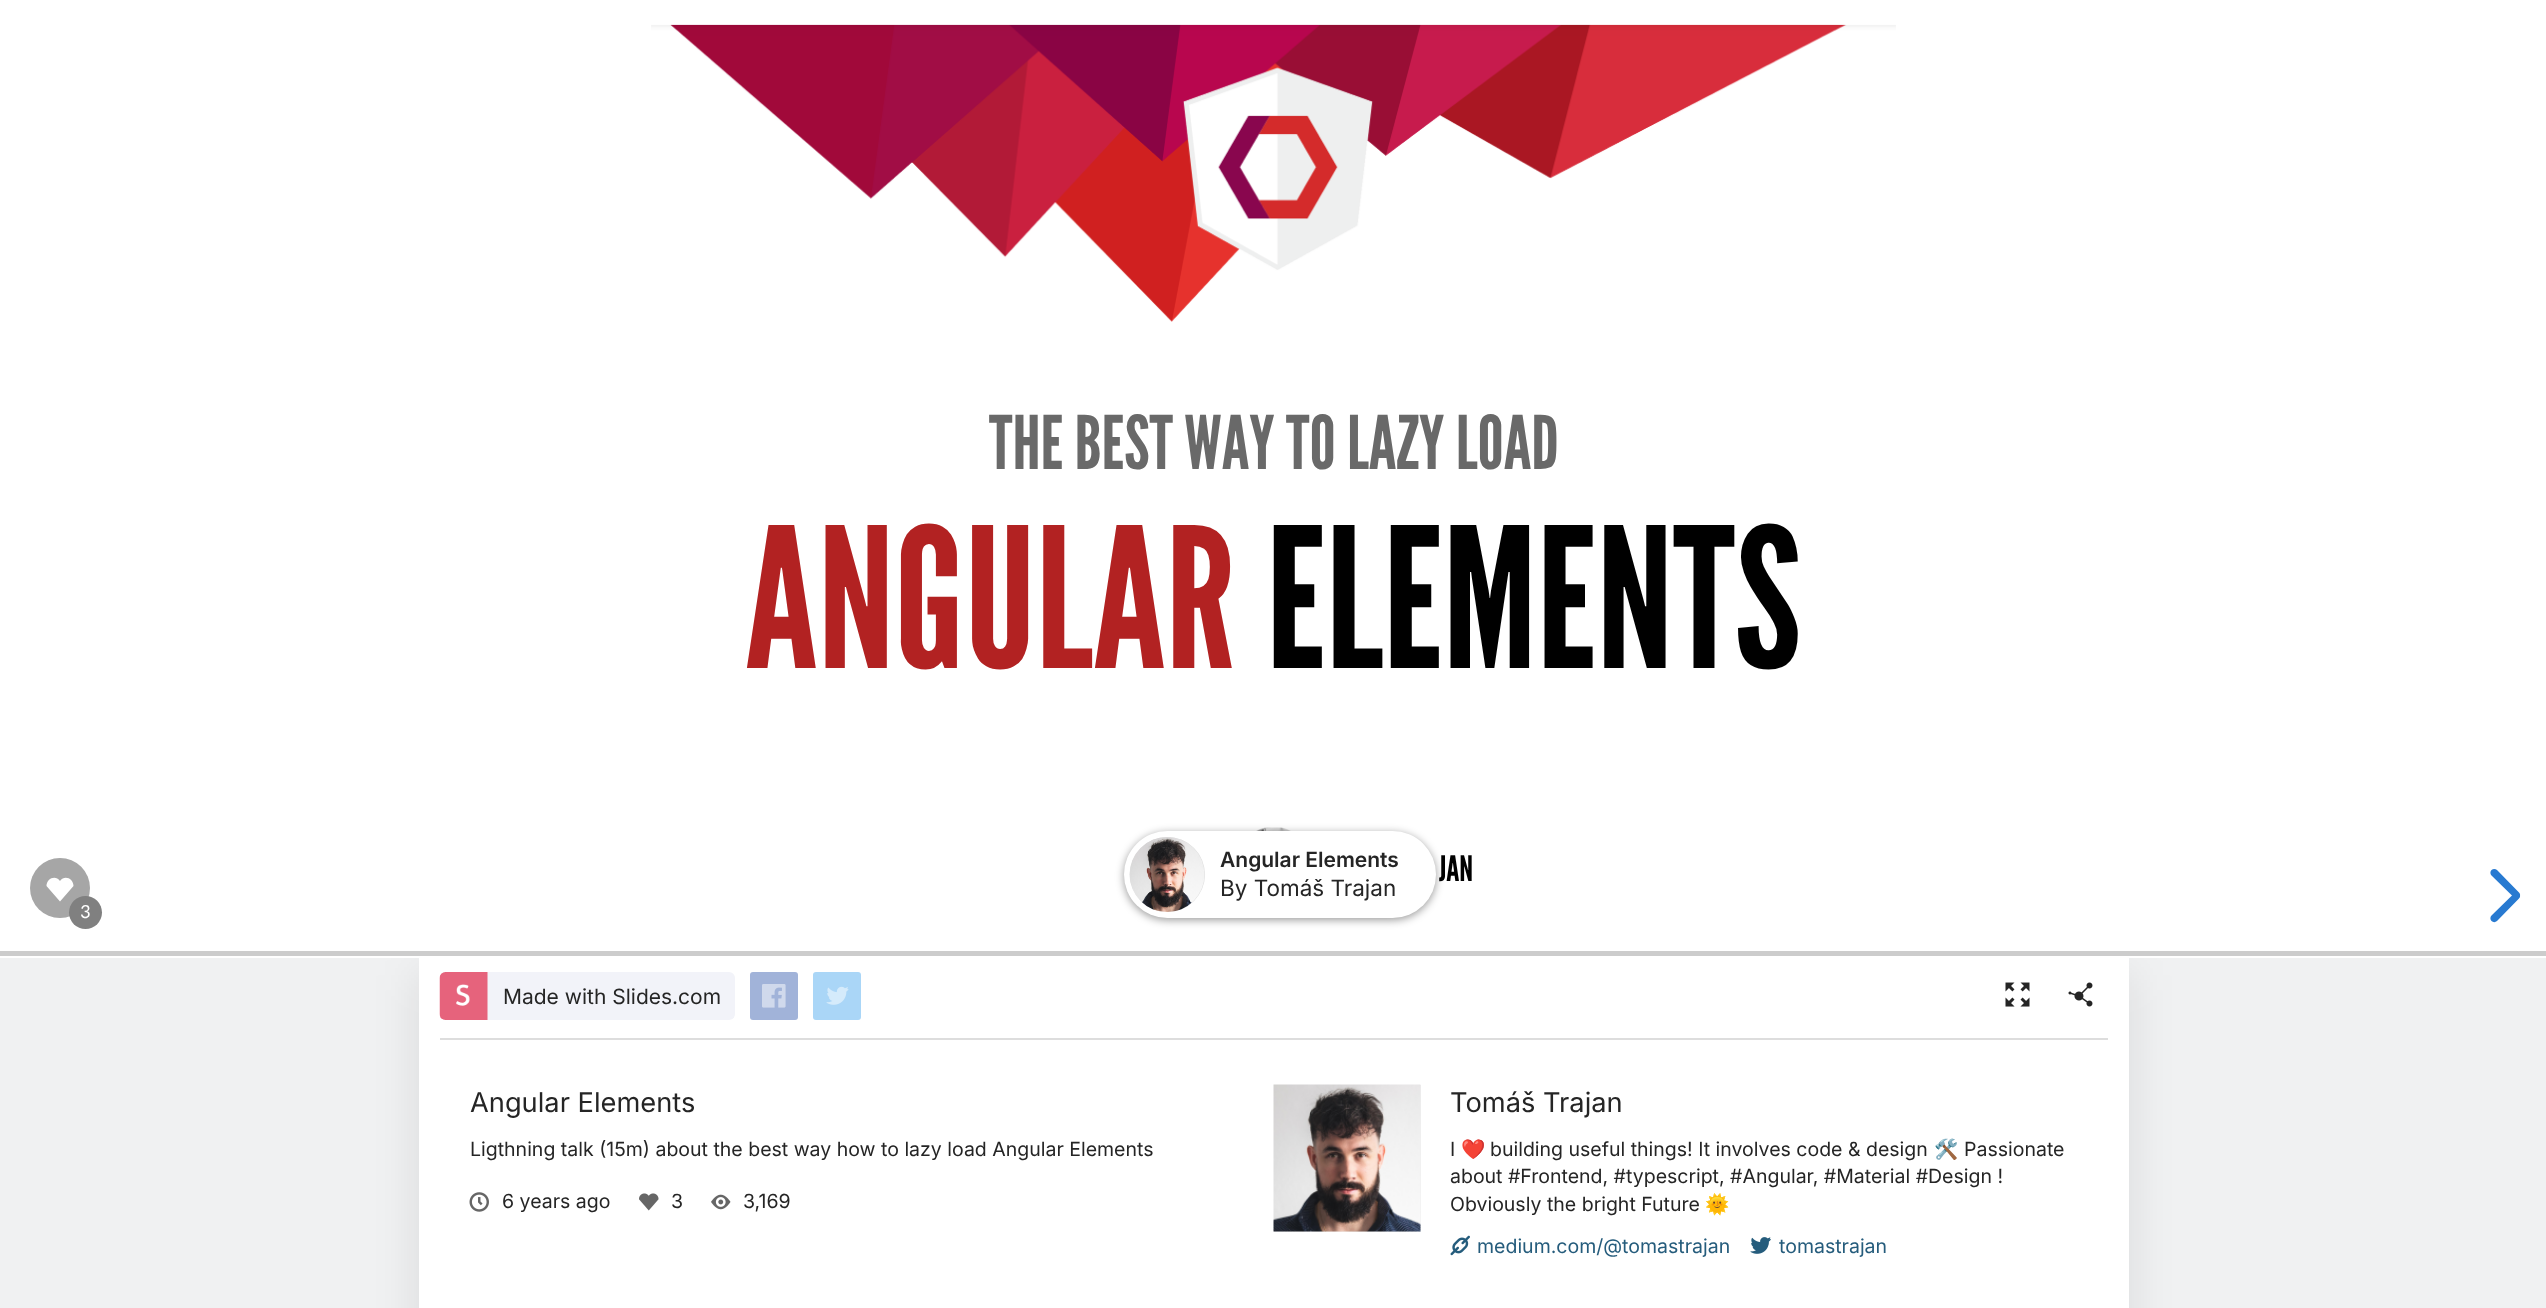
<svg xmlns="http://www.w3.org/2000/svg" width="2546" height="1308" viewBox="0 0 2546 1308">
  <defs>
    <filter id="blur1" x="-50%" y="-200%" width="200%" height="500%"><feGaussianBlur stdDeviation="22.5"/></filter>
    <filter id="blur2" x="-50%" y="-200%" width="200%" height="500%"><feGaussianBlur stdDeviation="4"/></filter>
  </defs>
  <rect width="100%" height="100%" fill="#f0f1f2"/>
  <rect x="419" y="975" width="1710" height="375" rx="3" fill="#000000" fill-opacity="0.1" filter="url(#blur1)"/>
  <rect x="0" y="956" width="2546" height="2" fill="#ffffff"/>
  <rect x="0" y="0" width="2546" height="951" fill="#ffffff"/>
  <image x="651" y="24" width="1245" height="298" href="img1.png"/>
  <text x="989" y="469" font-family="League Gothic" font-size="74" fill="#696969">THE BEST WAY TO LAZY LOAD</text>
  <text x="745" y="668" font-family="League Gothic" font-size="194.5" fill="#b22222">ANGULAR</text>
  <text x="1266" y="668" font-family="League Gothic" font-size="194.5" fill="#000000">ELEMENTS</text>
  <image x="1256" y="827" width="35" height="4" href="img2.png"/>
  <text x="1439" y="881" font-family="League Gothic" font-size="35" fill="#000000">JAN</text>
  <circle cx="60" cy="888" r="30" fill="#a6a6a6"/>
  <path d="M60 881C55.5 874.5 46.5 878.5 46.5 886L60 901.5L73.5 886C73.5 878.5 64.5 874.5 60 881Z" fill="#ffffff"/>
  <circle cx="85.5" cy="912.5" r="16.5" fill="#808080"/>
  <text x="80" y="918" font-family="Lato" font-size="18" fill="#ffffff">3</text>
  <path d="M2514 897.5L2491.5 875.5C2490 874 2490 871.5 2491.5 870C2493 868.5 2495.5 868.5 2497 870L2519 892.5C2520.5 894 2520.5 896 2519 897.5C2517.5 899 2515.5 899 2514 897.5Z" fill="#287ad1"/>
  <path d="M2519 898.5L2497 921C2495.5 922.5 2493 922.5 2491.5 921C2490 919.5 2490 917 2491.5 915.5L2514 893.5C2515.5 892 2517.5 892 2519 893.5C2520.5 895 2520.5 897 2519 898.5Z" fill="#287ad1"/>
  <rect x="0" y="951" width="2546" height="5" fill="#cccccc"/>
  <rect x="1124" y="833" width="312" height="87" rx="43.5" fill="#000000" fill-opacity="0.4" filter="url(#blur2)"/>
  <rect x="1124" y="831" width="312" height="87" rx="43.5" fill="#ffffff"/>
  <circle cx="1167.5" cy="874.5" r="37.5" fill="#dddddd"/>
  <image x="1129" y="837" width="76" height="75" href="img3.png"/>
  <text x="1220" y="867" font-family="Inter" font-size="21" font-weight="600" fill="#252525">Angular Elements</text>
  <text x="1220" y="896" font-family="Inter" font-size="22.5" fill="#252525">By Tomáš Trajan</text>
  <rect x="419" y="958" width="1710" height="350" fill="#ffffff"/>
  <rect x="440" y="972" width="295" height="48" rx="6" fill="#f2f3f9"/>
  <image x="439" y="972" width="49" height="48" href="img4.png"/>
  <text x="503" y="1004" font-family="Inter" font-size="21" fill="#252525">Made with Slides.com</text>
  <rect x="750" y="972" width="48" height="48" rx="3" fill="#a1b3d9"/>
  <image x="762" y="984" width="24" height="24" href="img5.png"/>
  <rect x="813" y="972" width="48" height="48" rx="3" fill="#aad6f7"/>
  <image x="826" y="986" width="23" height="19" href="img6.png"/>
  <image x="2005" y="982" width="25" height="25" href="img7.png"/>
  <image x="2068" y="982" width="25" height="25" href="img8.png"/>
  <rect x="440" y="1038" width="1668" height="2" fill="#dddddd"/>
  <text x="470" y="1112" font-family="Inter" font-size="27.25" fill="#252525">Angular Elements</text>
  <text x="470" y="1156" font-family="Inter" font-size="19.5" fill="#252525">Ligthning talk (15m) about the best way how to lazy load Angular Elements</text>
  <image x="469" y="1192" width="20" height="20" href="img9.png"/>
  <text x="502" y="1208" font-family="Inter" font-size="19.5" fill="#252525">6 years ago</text>
  <image x="639" y="1193" width="20" height="18" href="img10.png"/>
  <text x="671" y="1208" font-family="Inter" font-size="19.5" fill="#252525">3</text>
  <image x="711" y="1194" width="20" height="16" href="img11.png"/>
  <text x="743" y="1208" font-family="Inter" font-size="19.5" fill="#252525">3,169</text>
  <rect x="1274" y="1085" width="147" height="147" fill="#eeeeee"/>
  <image x="1273" y="1084" width="148" height="148" href="img12.png"/>
  <text x="1450" y="1112" font-family="Inter" font-size="27.25" fill="#252525">Tomáš Trajan</text>
  <text x="1450" y="1156" font-family="Inter" font-size="19.5" fill="#252525">I</text>
  <text x="1461" y="1156" font-family="Noto Color Emoji" font-size="19.5" fill="#252525">❤️</text>
  <text x="1490" y="1156" font-family="Inter" font-size="19.5" fill="#252525">building useful things! It involves code &amp; design</text>
  <text x="1934" y="1156" font-family="Noto Color Emoji" font-size="19.5" fill="#252525">🛠</text>
  <text x="1964" y="1156" font-family="Inter" font-size="19.5" fill="#252525">Passionate</text>
  <text x="1450" y="1183" font-family="Inter" font-size="19.5" fill="#252525">about #Frontend, #typescript, #Angular, #Material #Design !</text>
  <text x="1450" y="1211" font-family="Inter" font-size="19.5" fill="#252525">Obviously the bright Future</text>
  <text x="1705" y="1211" font-family="Noto Color Emoji" font-size="19.5" fill="#252525">🌞</text>
  <image x="1450" y="1235" width="20" height="21" href="img13.png"/>
  <text x="1477" y="1253" font-family="Inter" font-size="19.5" fill="#255c7c">medium.com/@tomastrajan</text>
  <image x="1750" y="1237" width="21" height="17" href="img14.png"/>
  <text x="1779" y="1253" font-family="Inter" font-size="19.5" fill="#255c7c">tomastrajan</text>
</svg>
